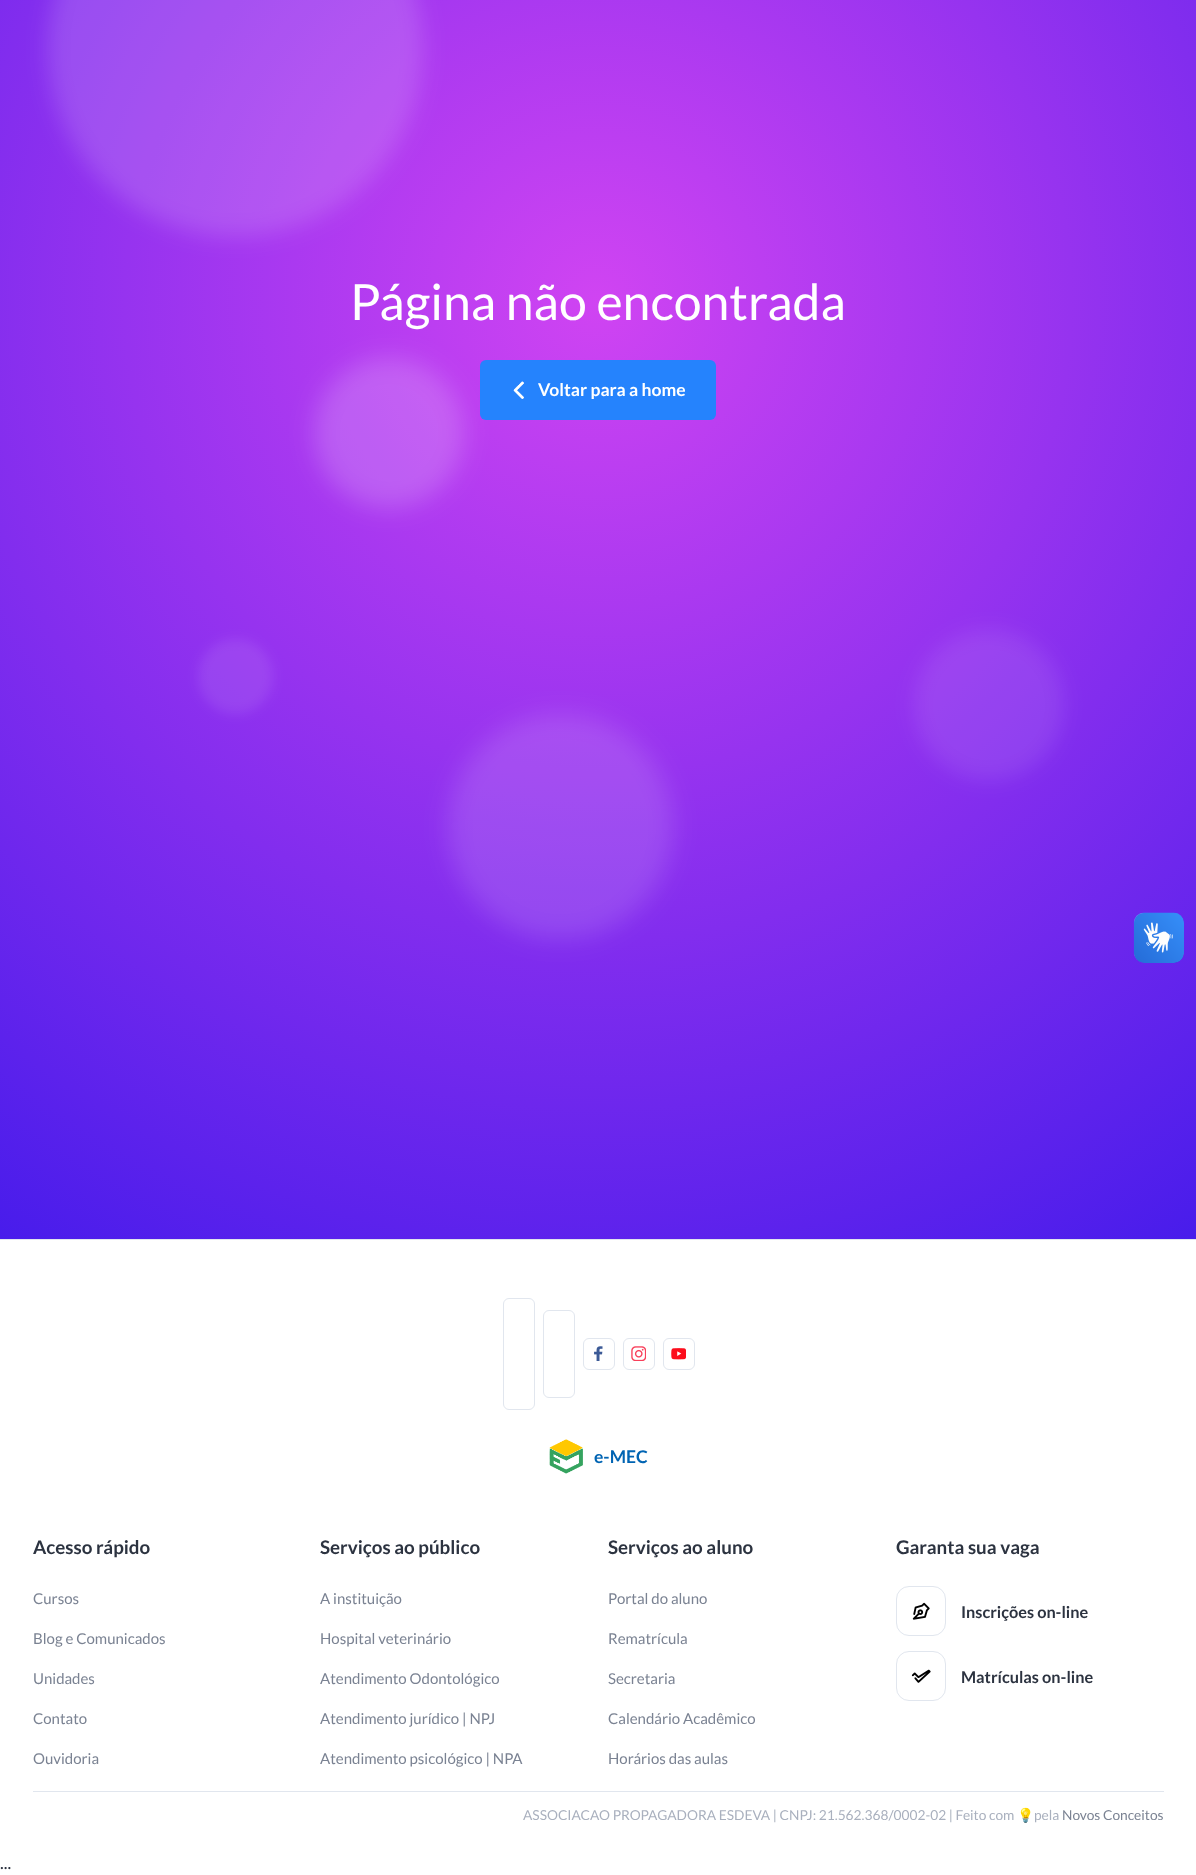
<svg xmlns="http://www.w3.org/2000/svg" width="1196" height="1875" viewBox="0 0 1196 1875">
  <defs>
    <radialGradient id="g1" gradientUnits="userSpaceOnUse" cx="598" cy="301" r="1112"><stop offset="0" stop-color="#d044f2"/><stop offset="1" stop-color="#481ceb"/></radialGradient>
    <filter id="blur1" x="-50%" y="-200%" width="200%" height="500%"><feGaussianBlur stdDeviation="11"/></filter>
    <filter id="blur2" x="-50%" y="-200%" width="200%" height="500%"><feGaussianBlur stdDeviation="12.5"/></filter>
    <filter id="blur3" x="-50%" y="-200%" width="200%" height="500%"><feGaussianBlur stdDeviation="6"/></filter>
    <filter id="blur4" x="-50%" y="-200%" width="200%" height="500%"><feGaussianBlur stdDeviation="10"/></filter>
  </defs>
  <rect width="100%" height="100%" fill="#ffffff"/>
  <rect x="0" y="0" width="1196" height="1239" fill="url(#g1)"/>
  <rect x="48" y="-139" width="375" height="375" rx="187.5" fill="#ffffff" fill-opacity="0.15" filter="url(#blur1)"/>
  <rect x="314" y="358" width="150" height="150" rx="75" fill="#ffffff" fill-opacity="0.18" filter="url(#blur2)"/>
  <rect x="198" y="639" width="75" height="75" rx="37.5" fill="#ffffff" fill-opacity="0.09" filter="url(#blur3)"/>
  <rect x="448" y="714" width="225" height="225" rx="112.5" fill="#ffffff" fill-opacity="0.13" filter="url(#blur2)"/>
  <rect x="914" y="630" width="150" height="150" rx="75" fill="#ffffff" fill-opacity="0.09" filter="url(#blur4)"/>
  <text x="350" y="320" font-family="Lato" font-size="50" fill="#ffffff">Página não encontrada</text>
  <rect x="480" y="360" width="236" height="60" rx="6" fill="#2583fd"/>
  <image x="513" y="381" width="11" height="18" href="img1.png"/>
  <text x="538" y="396" font-family="Lato" font-size="17.5" font-weight="bold" fill="#ffffff">Voltar para a home</text>
  <image x="1133" y="912" width="51" height="51" href="img2.png"/>
  <image x="1134" y="913" width="50" height="50" href="img3.png"/>
  <rect x="0" y="1239" width="1196" height="1" fill="#e1e6ee"/>
  <rect x="503.5" y="1298.5" width="31" height="111" rx="5.5" fill="none" stroke="#e1e6ee"/>
  <rect x="543.5" y="1310.5" width="31" height="87" rx="5.5" fill="none" stroke="#e1e6ee"/>
  <rect x="583.5" y="1338.5" width="31" height="31" rx="5.5" fill="none" stroke="#e1e6ee"/>
  <image x="594" y="1346" width="9" height="15" href="img4.png"/>
  <rect x="623.5" y="1338.5" width="31" height="31" rx="5.5" fill="none" stroke="#e1e6ee"/>
  <image x="631" y="1346" width="15" height="15" href="img5.png"/>
  <rect x="663.5" y="1338.5" width="31" height="31" rx="5.5" fill="none" stroke="#e1e6ee"/>
  <image x="671" y="1348" width="15" height="12" href="img6.png"/>
  <image x="549" y="1439" width="34" height="35" href="img7.png"/>
  <text x="594" y="1463" font-family="Lato" font-size="17.5" font-weight="bold" fill="#0064b3">e-MEC</text>
  <text x="33" y="1554" font-family="Lato" font-size="18.75" font-weight="bold" fill="#2c3340">Acesso rápido</text>
  <text x="33" y="1604" font-family="Lato" font-size="15" fill="#7a8292">Cursos</text>
  <text x="33" y="1644" font-family="Lato" font-size="15" fill="#7a8292">Blog e Comunicados</text>
  <text x="33" y="1684" font-family="Lato" font-size="15" fill="#7a8292">Unidades</text>
  <text x="33" y="1724" font-family="Lato" font-size="15" fill="#7a8292">Contato</text>
  <text x="33" y="1764" font-family="Lato" font-size="15" fill="#7a8292">Ouvidoria</text>
  <text x="320" y="1554" font-family="Lato" font-size="18.75" font-weight="bold" fill="#2c3340">Serviços ao público</text>
  <text x="320" y="1604" font-family="Lato" font-size="15" fill="#7a8292">A instituição</text>
  <text x="320" y="1644" font-family="Lato" font-size="15" fill="#7a8292">Hospital veterinário</text>
  <text x="320" y="1684" font-family="Lato" font-size="15" fill="#7a8292">Atendimento Odontológico</text>
  <text x="320" y="1724" font-family="Lato" font-size="15" fill="#7a8292">Atendimento jurídico | NPJ</text>
  <text x="320" y="1764" font-family="Lato" font-size="15" fill="#7a8292">Atendimento psicológico | NPA</text>
  <text x="608" y="1554" font-family="Lato" font-size="18.75" font-weight="bold" fill="#2c3340">Serviços ao aluno</text>
  <text x="608" y="1604" font-family="Lato" font-size="15" fill="#7a8292">Portal do aluno</text>
  <text x="608" y="1644" font-family="Lato" font-size="15" fill="#7a8292">Rematrícula</text>
  <text x="608" y="1684" font-family="Lato" font-size="15" fill="#7a8292">Secretaria</text>
  <text x="608" y="1724" font-family="Lato" font-size="15" fill="#7a8292">Calendário Acadêmico</text>
  <text x="608" y="1764" font-family="Lato" font-size="15" fill="#7a8292">Horários das aulas</text>
  <text x="896" y="1554" font-family="Lato" font-size="18.75" font-weight="bold" fill="#2c3340">Garanta sua vaga</text>
  <rect x="896.5" y="1586.5" width="49" height="49" rx="12.5" fill="none" stroke="#e1e6ee"/>
  <image x="912" y="1602" width="18" height="18" href="img8.png"/>
  <text x="961" y="1618" font-family="Lato" font-size="16.25" font-weight="bold" fill="#2c3340">Inscrições on-line</text>
  <rect x="896.5" y="1651.5" width="49" height="49" rx="12.5" fill="none" stroke="#e1e6ee"/>
  <image x="911" y="1669" width="20" height="14" href="img9.png"/>
  <text x="961" y="1683" font-family="Lato" font-size="16.25" font-weight="bold" fill="#2c3340">Matrículas on-line</text>
  <rect x="33" y="1791" width="1131" height="1" fill="#e1e6ee"/>
  <text x="523" y="1820" font-family="Lato" font-size="13.75" fill="#a9b0be">ASSOCIACAO PROPAGADORA ESDEVA | CNPJ: 21.562.368/0002-02 | Feito com</text>
  <text x="1017" y="1820" font-family="Noto Color Emoji" font-size="13.75" fill="#a9b0be">💡</text>
  <text x="1034" y="1820" font-family="Lato" font-size="13.75" fill="#a9b0be">pela</text>
  <text x="1062" y="1820" font-family="Lato" font-size="13.75" fill="#7a8292">Novos Conceitos</text>
  <text x="0" y="1869" font-family="Lato" font-size="17.5" fill="#2c3340">...</text>
</svg>
